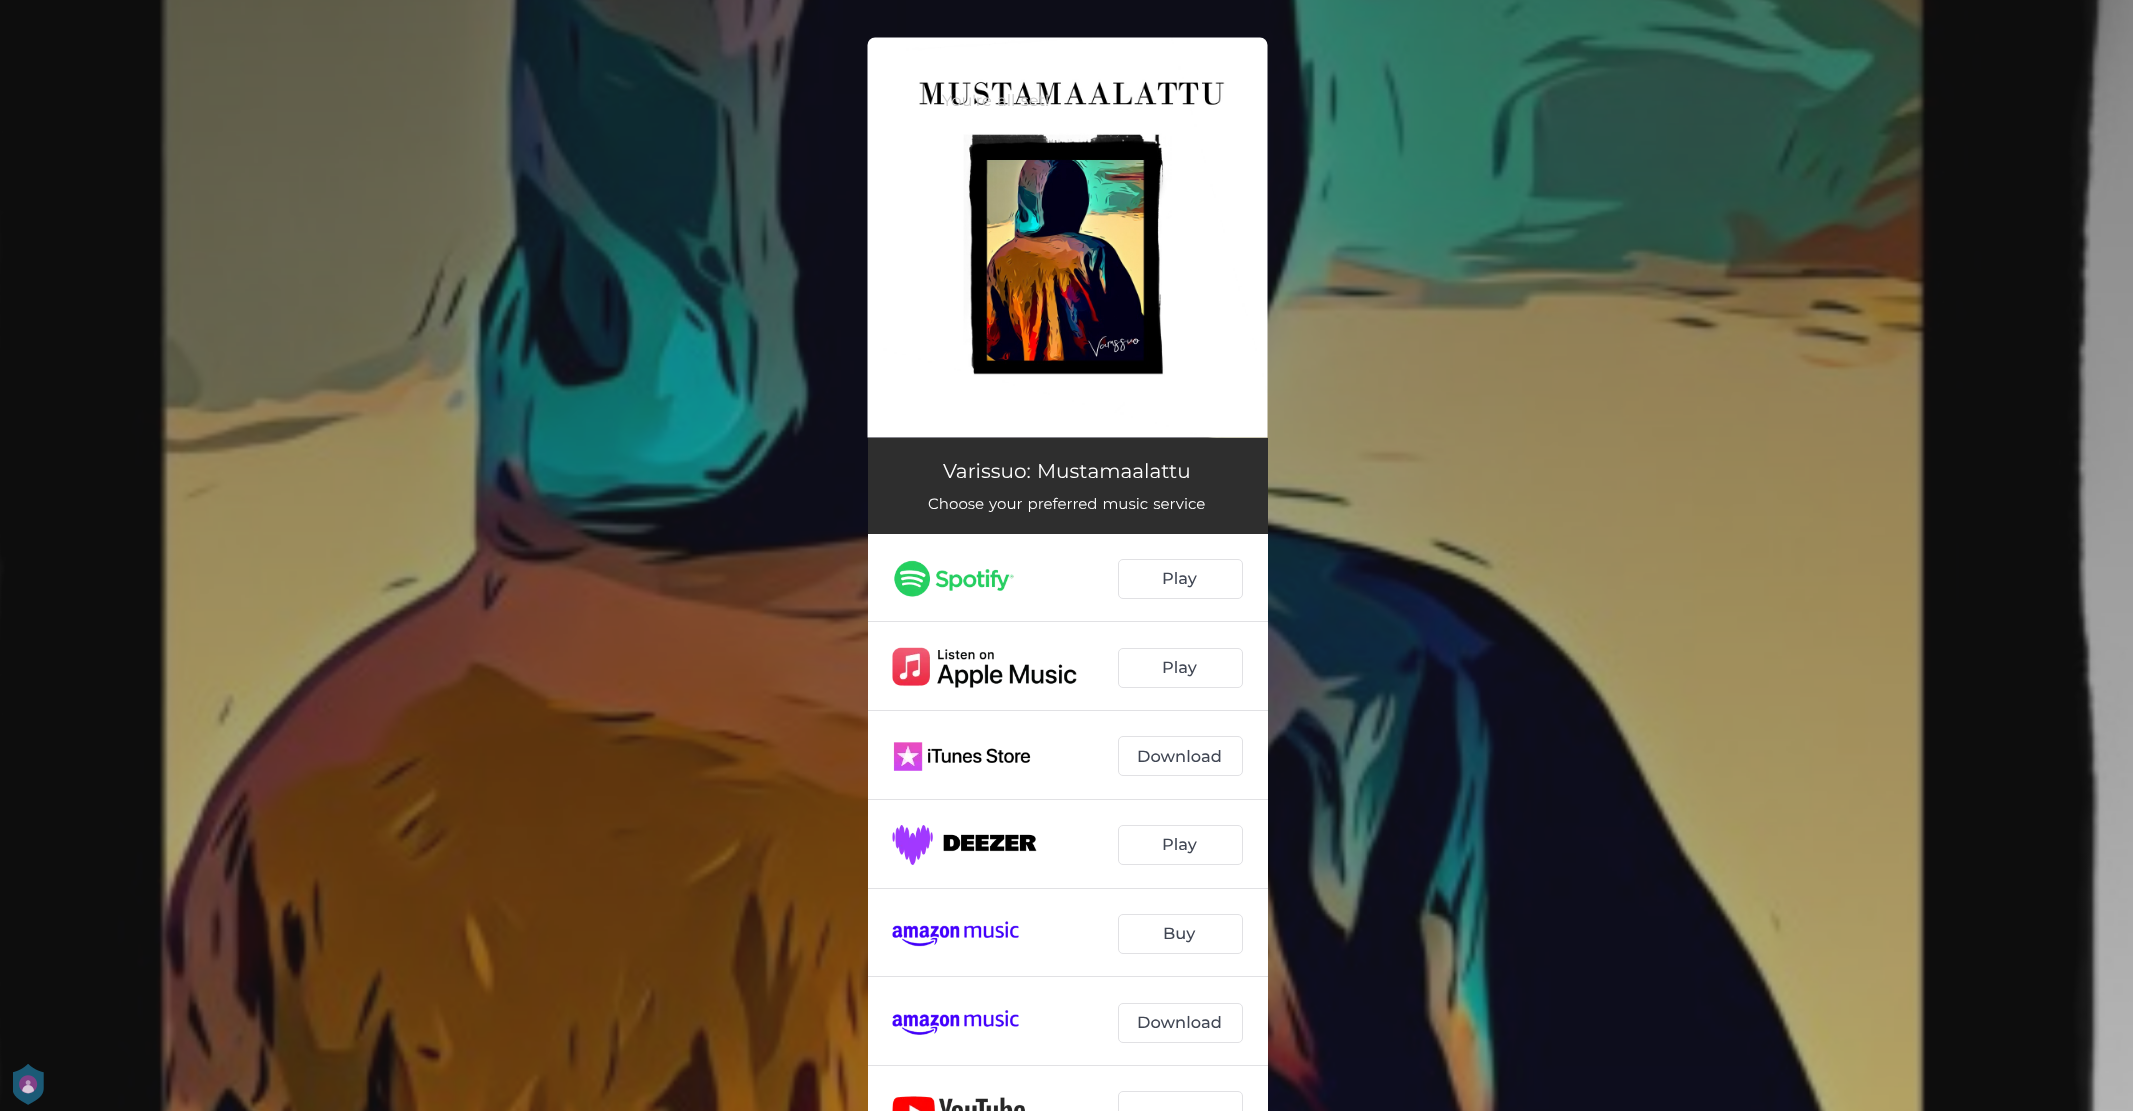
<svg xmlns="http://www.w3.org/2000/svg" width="2133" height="1111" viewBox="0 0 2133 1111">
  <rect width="100%" height="100%" fill="#ffffff"/>
  <image x="0" y="0" width="2133" height="1111" href="img1.png"/>
  <image x="867" y="37" width="401" height="401" href="img2.png"/>
  <text x="942" y="106" word-spacing="1" font-family="Montserrat" font-size="16.25" fill="#cccccc">You're all set!</text>
  <rect x="868" y="438" width="400" height="96" fill="#2e2e2e"/>
  <text x="943" y="478" word-spacing="1" font-family="Montserrat" font-size="20" fill="#ffffff">Varissuo: Mustamaalattu</text>
  <text x="928" y="509" word-spacing="1" font-family="Montserrat" font-size="15" fill="#ffffff">Choose your preferred music service</text>
  <rect x="868" y="534" width="400" height="577" fill="#ffffff"/>
  <rect x="868" y="621" width="400" height="1" fill="#e1e1e4"/>
  <image x="894" y="560" width="120" height="37" href="img3.png"/>
  <rect x="1118.5" y="559.5" width="124" height="39" rx="4.5" fill="none" stroke="#e1e1e4"/>
  <text x="1162" y="584" font-family="Montserrat" font-size="16.25" font-weight="500" fill="#414754">Play</text>
  <rect x="868" y="710" width="400" height="1" fill="#e1e1e4"/>
  <image x="892" y="647" width="185" height="41" href="img4.png"/>
  <rect x="1118.5" y="648.5" width="124" height="39" rx="4.5" fill="none" stroke="#e1e1e4"/>
  <text x="1162" y="673" font-family="Montserrat" font-size="16.25" font-weight="500" fill="#414754">Play</text>
  <rect x="868" y="799" width="400" height="1" fill="#e1e1e4"/>
  <image x="893" y="742" width="138" height="29" href="img5.png"/>
  <rect x="1118.5" y="736.5" width="124" height="39" rx="4.5" fill="none" stroke="#e1e1e4"/>
  <text x="1137" y="762" font-family="Montserrat" font-size="16.25" font-weight="500" fill="#414754">Download</text>
  <rect x="868" y="888" width="400" height="1" fill="#e1e1e4"/>
  <image x="892" y="825" width="145" height="40" href="img6.png"/>
  <rect x="1118.5" y="825.5" width="124" height="39" rx="4.5" fill="none" stroke="#e1e1e4"/>
  <text x="1162" y="850" font-family="Montserrat" font-size="16.25" font-weight="500" fill="#414754">Play</text>
  <rect x="868" y="976" width="400" height="1" fill="#e1e1e4"/>
  <image x="892" y="921" width="127" height="26" href="img7.png"/>
  <rect x="1118.5" y="914.5" width="124" height="39" rx="4.5" fill="none" stroke="#e1e1e4"/>
  <text x="1163" y="939" font-family="Montserrat" font-size="16.25" font-weight="500" fill="#414754">Buy</text>
  <rect x="868" y="1065" width="400" height="1" fill="#e1e1e4"/>
  <image x="892" y="1010" width="127" height="25" href="img8.png"/>
  <rect x="1118.5" y="1003.5" width="124" height="39" rx="4.5" fill="none" stroke="#e1e1e4"/>
  <text x="1137" y="1028" font-family="Montserrat" font-size="16.25" font-weight="500" fill="#414754">Download</text>
  <image x="892" y="1096" width="133" height="15" href="img9.png"/>
  <rect x="1118.5" y="1091.5" width="124" height="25" rx="4.5" fill="none" stroke="#e1e1e4"/>
  <image x="13" y="1064" width="31" height="41" href="img10.png"/>
</svg>
